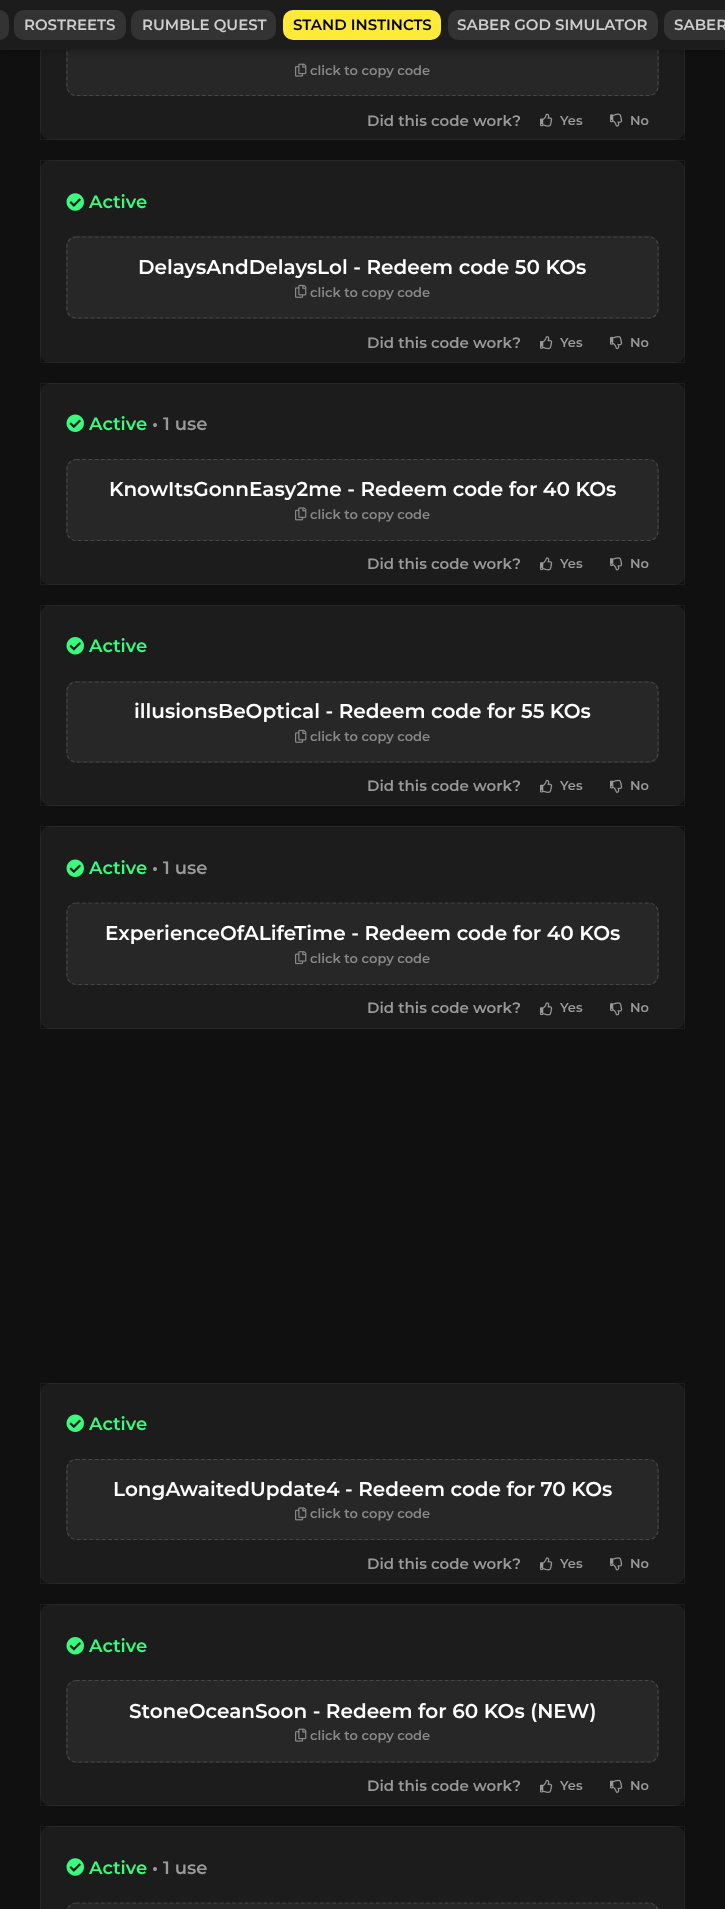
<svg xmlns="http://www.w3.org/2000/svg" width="725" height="1909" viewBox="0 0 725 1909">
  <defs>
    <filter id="blur1" x="-50%" y="-200%" width="200%" height="500%"><feGaussianBlur stdDeviation="3"/></filter>
  </defs>
  <rect width="100%" height="100%" fill="#101010"/>
  <rect x="40" y="-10" width="645" height="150" rx="10" fill="#1c1c1c"/>
  <rect x="40.5" y="-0.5" width="644" height="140" fill="none" stroke="#ffffff" stroke-opacity="0.05"/>
  <rect x="66" y="15" width="593" height="81" rx="10" fill="#272727"/>
  <path d="M76 15.5H649C654 15.5 658 20 658 25V86C658 91.5 654 95.5 649 95.5H76C71 95.5 67 91.5 67 86V25C67 20 71 15.5 76 15.5Z" fill="none" stroke="#ffffff" stroke-opacity="0.15" stroke-width="1.2" stroke-dasharray="3.75 2.5"/>
  <rect x="0" y="3" width="725" height="50" fill="#000000" fill-opacity="0.2" filter="url(#blur1)"/>
  <rect x="0" y="0" width="725" height="50" fill="#1c1c1c"/>
  <path d="M0 10H-1C4.5 10 9 14.5 9 20V30C9 35.5 4.5 40-1 40H0Z" fill="#333333"/>
  <rect x="14" y="10" width="112" height="30" rx="10" fill="#333333"/>
  <text x="24" y="30" font-family="Montserrat" font-size="15" font-weight="600" fill="#cecece">ROSTREETS</text>
  <rect x="131" y="10" width="145" height="30" rx="10" fill="#333333"/>
  <text x="142" y="30" font-family="Montserrat" font-size="15" font-weight="600" fill="#cecece">RUMBLE QUEST</text>
  <rect x="283" y="10" width="158" height="30" rx="10" fill="#ffea3a"/>
  <text x="293" y="30" font-family="Montserrat" font-size="15" font-weight="600" fill="#000000">STAND INSTINCTS</text>
  <rect x="448" y="10" width="210" height="30" rx="10" fill="#333333"/>
  <text x="457" y="30" font-family="Montserrat" font-size="15" font-weight="600" fill="#cecece">SABER GOD SIMULATOR</text>
  <path d="M674 10H725V40H674C668.5 40 664 35.5 664 30V20C664 14.5 668.5 10 674 10Z" fill="#333333"/>
  <text x="674" y="30" font-family="Montserrat" font-size="15" font-weight="600" fill="#cecece">SABER</text>
  <image x="295" y="63" width="12" height="14" href="img1.png"/>
  <text x="310" y="75" font-family="Montserrat" font-size="13" font-weight="600" fill="#888888">click to copy code</text>
  <text x="367" y="126" font-family="Montserrat" font-size="15" font-weight="600" fill="#999999">Did this code work?</text>
  <image x="540" y="113" width="13" height="14" href="img2.png"/>
  <text x="560" y="125" font-family="Montserrat" font-size="13" font-weight="600" fill="#999999">Yes</text>
  <image x="610" y="113" width="13" height="14" href="img3.png"/>
  <text x="630" y="125" font-family="Montserrat" font-size="13" font-weight="600" fill="#999999">No</text>
  <rect x="40" y="160" width="645" height="203" rx="10" fill="#1c1c1c"/>
  <rect x="40.5" y="160.5" width="644" height="202" fill="none" stroke="#ffffff" stroke-opacity="0.05"/>
  <image x="66" y="193" width="18" height="18" href="img4.png"/>
  <text x="89" y="208" font-family="Montserrat" font-size="18" font-weight="600" fill="#39fc7e">Active</text>
  <rect x="66" y="236" width="593" height="83" rx="10" fill="#272727"/>
  <path d="M76 237H649C654 237 658 241 658 246V309C658 314 654 318 649 318H76C71 318 67 314 67 309V246C67 241 71 237 76 237Z" fill="none" stroke="#474747" stroke-width="1.2" stroke-dasharray="3.75 2.5"/>
  <text x="138" y="274" font-family="Montserrat" font-size="20" font-weight="600" fill="#ffffff">DelaysAndDelaysLol - Redeem code 50 KOs</text>
  <image x="295" y="284" width="12" height="14" href="img5.png"/>
  <text x="310" y="297" font-family="Montserrat" font-size="13" font-weight="600" fill="#888888">click to copy code</text>
  <text x="367" y="348" font-family="Montserrat" font-size="15" font-weight="600" fill="#999999">Did this code work?</text>
  <image x="540" y="336" width="13" height="14" href="img6.png"/>
  <text x="560" y="347" font-family="Montserrat" font-size="13" font-weight="600" fill="#999999">Yes</text>
  <image x="610" y="336" width="13" height="14" href="img7.png"/>
  <text x="630" y="347" font-family="Montserrat" font-size="13" font-weight="600" fill="#999999">No</text>
  <rect x="40" y="383" width="645" height="202" rx="10" fill="#1c1c1c"/>
  <rect x="40.5" y="383.5" width="644" height="201" fill="none" stroke="#ffffff" stroke-opacity="0.05"/>
  <image x="66" y="414" width="18" height="18" href="img8.png"/>
  <text x="89" y="430" font-family="Montserrat" font-size="18" font-weight="600" fill="#39fc7e">Active</text>
  <text x="152" y="430" font-family="Montserrat" font-size="18" font-weight="600" fill="#999999">• 1 use</text>
  <rect x="66" y="459" width="593" height="82" rx="10" fill="#272727"/>
  <path d="M76 459.5H649C654 459.5 658 463.5 658 469V531C658 536.5 654 540.5 649 540.5H76C71 540.5 67 536.5 67 531V469C67 463.5 71 459.5 76 459.5Z" fill="none" stroke="#ffffff" stroke-opacity="0.15" stroke-width="1.2" stroke-dasharray="3.75 2.5"/>
  <text x="109" y="496" font-family="Montserrat" font-size="20" font-weight="600" fill="#ffffff">KnowItsGonnEasy2me - Redeem code for 40 KOs</text>
  <image x="295" y="507" width="12" height="14" href="img9.png"/>
  <text x="310" y="519" font-family="Montserrat" font-size="13" font-weight="600" fill="#888888">click to copy code</text>
  <text x="367" y="569" font-family="Montserrat" font-size="15" font-weight="600" fill="#999999">Did this code work?</text>
  <image x="540" y="557" width="13" height="14" href="img10.png"/>
  <text x="560" y="568" font-family="Montserrat" font-size="13" font-weight="600" fill="#999999">Yes</text>
  <image x="610" y="557" width="13" height="14" href="img11.png"/>
  <text x="630" y="568" font-family="Montserrat" font-size="13" font-weight="600" fill="#999999">No</text>
  <rect x="40" y="605" width="645" height="201" rx="10" fill="#1c1c1c"/>
  <rect x="40.5" y="605.5" width="644" height="200" fill="none" stroke="#ffffff" stroke-opacity="0.05"/>
  <image x="66" y="637" width="18" height="18" href="img12.png"/>
  <text x="89" y="652" font-family="Montserrat" font-size="18" font-weight="600" fill="#39fc7e">Active</text>
  <rect x="66" y="681" width="593" height="82" rx="10" fill="#272727"/>
  <path d="M76 682H649C654 682 658 686 658 691V752.5C658 757.5 654 762 649 762H76C71 762 67 757.5 67 752.5V691C67 686 71 682 76 682Z" fill="none" stroke="#474747" stroke-width="1.2" stroke-dasharray="3.75 2.5"/>
  <text x="134" y="718" font-family="Montserrat" font-size="20" font-weight="600" fill="#ffffff">illusionsBeOptical - Redeem code for 55 KOs</text>
  <image x="295" y="729" width="12" height="14" href="img5.png"/>
  <text x="310" y="741" font-family="Montserrat" font-size="13" font-weight="600" fill="#888888">click to copy code</text>
  <text x="367" y="791" font-family="Montserrat" font-size="15" font-weight="600" fill="#999999">Did this code work?</text>
  <image x="540" y="779" width="13" height="14" href="img13.png"/>
  <text x="560" y="790" font-family="Montserrat" font-size="13" font-weight="600" fill="#999999">Yes</text>
  <image x="610" y="779" width="13" height="14" href="img14.png"/>
  <text x="630" y="790" font-family="Montserrat" font-size="13" font-weight="600" fill="#999999">No</text>
  <rect x="40" y="826" width="645" height="203" rx="10" fill="#1c1c1c"/>
  <rect x="40.5" y="826.5" width="644" height="202" fill="none" stroke="#ffffff" stroke-opacity="0.05"/>
  <image x="66" y="859" width="18" height="18" href="img8.png"/>
  <text x="89" y="874" font-family="Montserrat" font-size="18" font-weight="600" fill="#39fc7e">Active</text>
  <text x="152" y="874" font-family="Montserrat" font-size="18" font-weight="600" fill="#999999">• 1 use</text>
  <rect x="66" y="903" width="593" height="82" rx="10" fill="#272727"/>
  <path d="M76 903H649C654 903 658 907.5 658 912.5V975C658 980 654 984.5 649 984.5H76C71 984.5 67 980 67 975V912.5C67 907.5 71 903 76 903Z" fill="none" stroke="#ffffff" stroke-opacity="0.15" stroke-width="1.2" stroke-dasharray="3.75 2.5"/>
  <text x="105" y="940" font-family="Montserrat" font-size="20" font-weight="600" fill="#ffffff">ExperienceOfALifeTime - Redeem code for 40 KOs</text>
  <image x="295" y="951" width="12" height="14" href="img15.png"/>
  <text x="310" y="963" font-family="Montserrat" font-size="13" font-weight="600" fill="#888888">click to copy code</text>
  <text x="367" y="1013" font-family="Montserrat" font-size="15" font-weight="600" fill="#999999">Did this code work?</text>
  <image x="540" y="1002" width="13" height="14" href="img10.png"/>
  <text x="560" y="1012" font-family="Montserrat" font-size="13" font-weight="600" fill="#999999">Yes</text>
  <image x="610" y="1002" width="13" height="14" href="img11.png"/>
  <text x="630" y="1012" font-family="Montserrat" font-size="13" font-weight="600" fill="#999999">No</text>
  <rect x="40" y="1383" width="645" height="201" rx="10" fill="#1c1c1c"/>
  <rect x="40.5" y="1383.5" width="644" height="200" fill="none" stroke="#ffffff" stroke-opacity="0.05"/>
  <image x="66" y="1414" width="18" height="18" href="img8.png"/>
  <text x="89" y="1430" font-family="Montserrat" font-size="18" font-weight="600" fill="#39fc7e">Active</text>
  <rect x="66" y="1459" width="593" height="81" rx="10" fill="#272727"/>
  <path d="M76 1459.5H649C654 1459.5 658 1463.5 658 1469V1530C658 1535 654 1539.5 649 1539.5H76C71 1539.5 67 1535 67 1530V1469C67 1463.5 71 1459.5 76 1459.5Z" fill="none" stroke="#ffffff" stroke-opacity="0.15" stroke-width="1.2" stroke-dasharray="3.75 2.5"/>
  <text x="113" y="1496" font-family="Montserrat" font-size="20" font-weight="600" fill="#ffffff">LongAwaitedUpdate4 - Redeem code for 70 KOs</text>
  <image x="295" y="1507" width="12" height="14" href="img9.png"/>
  <text x="310" y="1518" font-family="Montserrat" font-size="13" font-weight="600" fill="#888888">click to copy code</text>
  <text x="367" y="1569" font-family="Montserrat" font-size="15" font-weight="600" fill="#999999">Did this code work?</text>
  <image x="540" y="1557" width="13" height="14" href="img10.png"/>
  <text x="560" y="1568" font-family="Montserrat" font-size="13" font-weight="600" fill="#999999">Yes</text>
  <image x="610" y="1557" width="13" height="14" href="img11.png"/>
  <text x="630" y="1568" font-family="Montserrat" font-size="13" font-weight="600" fill="#999999">No</text>
  <rect x="40" y="1604" width="645" height="202" rx="10" fill="#1c1c1c"/>
  <rect x="40.5" y="1604.5" width="644" height="201" fill="none" stroke="#ffffff" stroke-opacity="0.05"/>
  <image x="66" y="1637" width="18" height="18" href="img12.png"/>
  <text x="89" y="1652" font-family="Montserrat" font-size="18" font-weight="600" fill="#39fc7e">Active</text>
  <rect x="66" y="1680" width="593" height="83" rx="10" fill="#272727"/>
  <path d="M76 1680.5H649C654 1680.5 658 1685 658 1690V1752.5C658 1757.5 654 1762 649 1762H76C71 1762 67 1757.5 67 1752.5V1690C67 1685 71 1680.5 76 1680.5Z" fill="none" stroke="#ffffff" stroke-opacity="0.15" stroke-width="1.2" stroke-dasharray="3.75 2.5"/>
  <text x="129" y="1718" font-family="Montserrat" font-size="20" font-weight="600" fill="#ffffff">StoneOceanSoon - Redeem for 60 KOs (NEW)</text>
  <image x="295" y="1728" width="12" height="14" href="img1.png"/>
  <text x="310" y="1740" font-family="Montserrat" font-size="13" font-weight="600" fill="#888888">click to copy code</text>
  <text x="367" y="1791" font-family="Montserrat" font-size="15" font-weight="600" fill="#999999">Did this code work?</text>
  <image x="540" y="1779" width="13" height="14" href="img13.png"/>
  <text x="560" y="1790" font-family="Montserrat" font-size="13" font-weight="600" fill="#999999">Yes</text>
  <image x="610" y="1779" width="13" height="14" href="img14.png"/>
  <text x="630" y="1790" font-family="Montserrat" font-size="13" font-weight="600" fill="#999999">No</text>
  <rect x="40" y="1826" width="645" height="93" rx="10" fill="#1c1c1c"/>
  <rect x="40.5" y="1826.5" width="644" height="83" fill="none" stroke="#ffffff" stroke-opacity="0.05"/>
  <image x="66" y="1858" width="18" height="18" href="img4.png"/>
  <text x="89" y="1874" font-family="Montserrat" font-size="18" font-weight="600" fill="#39fc7e">Active</text>
  <text x="152" y="1874" font-family="Montserrat" font-size="18" font-weight="600" fill="#999999">• 1 use</text>
  <rect x="66" y="1903" width="593" height="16" rx="10" fill="#272727"/>
  <path d="M76 1903H649C654 1903 658 1907.5 658 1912.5V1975C658 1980 654 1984.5 649 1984.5H76C71 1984.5 67 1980 67 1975V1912.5C67 1907.5 71 1903 76 1903Z" fill="none" stroke="#ffffff" stroke-opacity="0.15" stroke-width="1.2" stroke-dasharray="3.75 2.5"/>
</svg>
